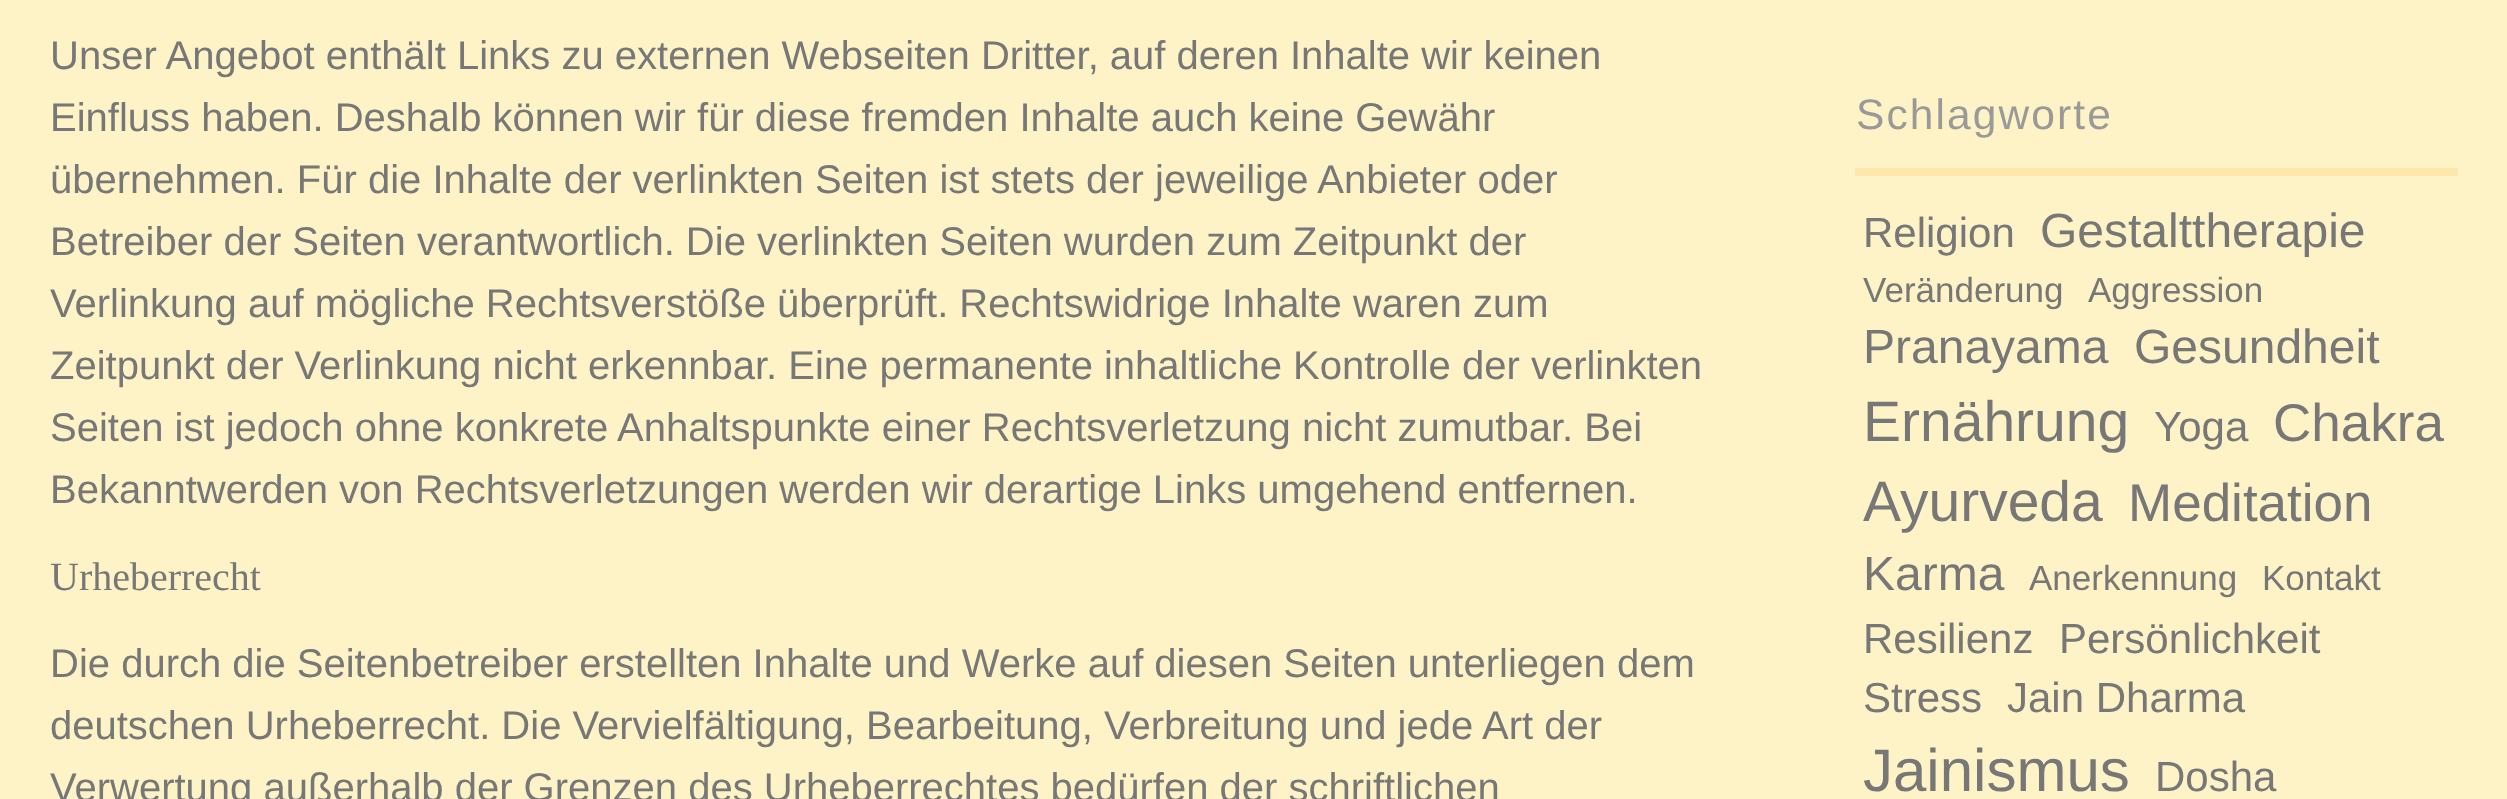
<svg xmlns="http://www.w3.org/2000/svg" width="2507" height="799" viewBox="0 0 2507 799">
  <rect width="100%" height="100%" fill="#fef3c6"/>
  <text x="50" y="69" font-family="Liberation Sans" font-size="40" fill="#777777">Unser Angebot enthält Links zu externen Webseiten Dritter, auf deren Inhalte wir keinen</text>
  <text x="50" y="131" font-family="Liberation Sans" font-size="40" fill="#777777">Einfluss haben. Deshalb können wir für diese fremden Inhalte auch keine Gewähr</text>
  <text x="50" y="193" font-family="Liberation Sans" font-size="40" fill="#777777">übernehmen. Für die Inhalte der verlinkten Seiten ist stets der jeweilige Anbieter oder</text>
  <text x="50" y="255" font-family="Liberation Sans" font-size="40" fill="#777777">Betreiber der Seiten verantwortlich. Die verlinkten Seiten wurden zum Zeitpunkt der</text>
  <text x="50" y="317" font-family="Liberation Sans" font-size="40" fill="#777777">Verlinkung auf mögliche Rechtsverstöße überprüft. Rechtswidrige Inhalte waren zum</text>
  <text x="50" y="379" font-family="Liberation Sans" font-size="40" fill="#777777">Zeitpunkt der Verlinkung nicht erkennbar. Eine permanente inhaltliche Kontrolle der verlinkten</text>
  <text x="50" y="441" font-family="Liberation Sans" font-size="40" fill="#777777">Seiten ist jedoch ohne konkrete Anhaltspunkte einer Rechtsverletzung nicht zumutbar. Bei</text>
  <text x="50" y="503" font-family="Liberation Sans" font-size="40" fill="#777777">Bekanntwerden von Rechtsverletzungen werden wir derartige Links umgehend entfernen.</text>
  <text x="50" y="590" font-family="Liberation Serif" font-size="40" fill="#777777">Urheberrecht</text>
  <text x="50" y="677" font-family="Liberation Sans" font-size="40" fill="#777777">Die durch die Seitenbetreiber erstellten Inhalte und Werke auf diesen Seiten unterliegen dem</text>
  <text x="50" y="739" font-family="Liberation Sans" font-size="40" fill="#777777">deutschen Urheberrecht. Die Vervielfältigung, Bearbeitung, Verbreitung und jede Art der</text>
  <text x="50" y="801" font-family="Liberation Sans" font-size="40" fill="#777777">Verwertung außerhalb der Grenzen des Urheberrechtes bedürfen der schriftlichen</text>
  <rect x="1855" y="168" width="603" height="8" fill="#fde7ac"/>
  <text x="1856" y="129" font-family="Liberation Sans" font-size="42.5" letter-spacing="2.1" fill="#999999">Schlagworte</text>
  <text x="1863" y="247" font-family="Liberation Sans" font-size="42" fill="#777777">Religion</text>
  <text x="2040" y="247" font-family="Liberation Sans" font-size="48" fill="#777777">Gestalttherapie</text>
  <text x="1863" y="302" font-family="Liberation Sans" font-size="35" fill="#777777">Veränderung</text>
  <text x="2088" y="302" font-family="Liberation Sans" font-size="35" fill="#777777">Aggression</text>
  <text x="1863" y="363" font-family="Liberation Sans" font-size="48" fill="#777777">Pranayama</text>
  <text x="2134" y="363" font-family="Liberation Sans" font-size="48" fill="#777777">Gesundheit</text>
  <text x="1863" y="441" font-family="Liberation Sans" font-size="57" fill="#777777">Ernährung</text>
  <text x="2154" y="441" font-family="Liberation Sans" font-size="42" fill="#777777">Yoga</text>
  <text x="2273" y="441" font-family="Liberation Sans" font-size="53" fill="#777777">Chakra</text>
  <text x="1863" y="521" font-family="Liberation Sans" font-size="57" fill="#777777">Ayurveda</text>
  <text x="2128" y="521" font-family="Liberation Sans" font-size="53" fill="#777777">Meditation</text>
  <text x="1863" y="590" font-family="Liberation Sans" font-size="48" fill="#777777">Karma</text>
  <text x="2029" y="590" font-family="Liberation Sans" font-size="35" fill="#777777">Anerkennung</text>
  <text x="2262" y="590" font-family="Liberation Sans" font-size="35" fill="#777777">Kontakt</text>
  <text x="1863" y="653" font-family="Liberation Sans" font-size="42" fill="#777777">Resilienz</text>
  <text x="2059" y="653" font-family="Liberation Sans" font-size="42" fill="#777777">Persönlichkeit</text>
  <text x="1863" y="712" font-family="Liberation Sans" font-size="42" fill="#777777">Stress</text>
  <text x="2007" y="712" font-family="Liberation Sans" font-size="42" fill="#777777">Jain Dharma</text>
  <text x="1863" y="791" font-family="Liberation Sans" font-size="60" fill="#777777">Jainismus</text>
  <text x="2155" y="791" font-family="Liberation Sans" font-size="42" fill="#777777">Dosha</text>
</svg>
